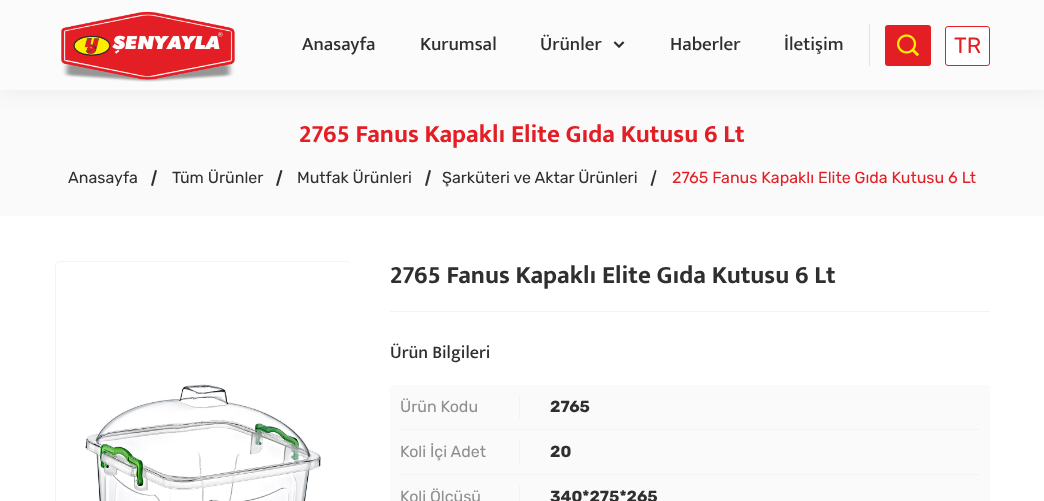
<svg xmlns="http://www.w3.org/2000/svg" width="1044" height="501" viewBox="0 0 1044 501">
  <defs>
    <filter id="blur1" x="-50%" y="-200%" width="200%" height="500%"><feGaussianBlur stdDeviation="10"/></filter>
    <clipPath id="clip1"><rect x="54" y="261" width="296" height="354"/></clipPath>
  </defs>
  <rect width="100%" height="100%" fill="#ffffff"/>
  <rect x="0" y="90" width="1044" height="126" fill="#fafafa"/>
  <rect x="-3" y="-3" width="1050" height="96" fill="#000000" fill-opacity="0.05" filter="url(#blur1)"/>
  <rect x="0" y="0" width="1044" height="90" fill="#fbfbfb"/>
  <image x="61" y="11" width="174" height="71" href="img1.png"/>
  <text x="302" y="50" font-family="Mukta" font-size="19" font-weight="500" fill="#2f2f2f">Anasayfa</text>
  <text x="420" y="50" font-family="Mukta" font-size="19" font-weight="500" fill="#2f2f2f">Kurumsal</text>
  <text x="540" y="50" font-family="Mukta" font-size="19" font-weight="500" fill="#2f2f2f">Ürünler</text>
  <image x="613" y="41" width="12" height="7" href="img2.png"/>
  <text x="670" y="50" font-family="Mukta" font-size="19" font-weight="500" fill="#2f2f2f">Haberler</text>
  <text x="784" y="50" font-family="Mukta" font-size="19" font-weight="500" fill="#2f2f2f">İletişim</text>
  <rect x="869" y="24" width="1" height="42" fill="#e2e2e2"/>
  <rect x="885" y="25" width="46" height="41" rx="3" fill="#e31e25"/>
  <image x="897" y="34" width="22" height="23" href="img3.png"/>
  <rect x="945.5" y="26.5" width="44" height="39" rx="2.5" fill="#ffffff" stroke="#e31e25"/>
  <text x="954" y="53" font-family="Rubik" font-size="22" fill="#e31e25">TR</text>
  <text x="299" y="142" font-family="Mukta" font-size="25" font-weight="bold" fill="#e31e25">2765 Fanus Kapaklı Elite Gıda Kutusu 6 Lt</text>
  <text x="68" y="183" font-family="Rubik" font-size="16" fill="#2f2f2f">Anasayfa</text>
  <path d="M155 170L157 170.5L153 186L151 185.5Z" fill="#2f2f2f"/>
  <text x="172" y="183" font-family="Rubik" font-size="16" fill="#2f2f2f">Tüm Ürünler</text>
  <path d="M280.5 170L282.5 170.5L278 186L276 185.5Z" fill="#2f2f2f"/>
  <text x="297" y="183" font-family="Rubik" font-size="16" fill="#2f2f2f">Mutfak Ürünleri</text>
  <path d="M429 170L431 170.5L427 186L425 185.5Z" fill="#2f2f2f"/>
  <text x="442" y="183" font-family="Rubik" font-size="16" fill="#2f2f2f">Şarküteri ve Aktar Ürünleri</text>
  <path d="M655 170L656.5 170.5L652.5 186L650.5 185.5Z" fill="#2f2f2f"/>
  <text x="672" y="183" font-family="Rubik" font-size="16" fill="#e31e25">2765 Fanus Kapaklı Elite Gıda Kutusu 6 Lt</text>
  <g clip-path="url(#clip1)">
    <rect x="55.5" y="261.5" width="295" height="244" rx="3.5" fill="none" stroke="#f3f3f3"/>
  </g>
  <image x="85" y="384" width="236" height="117" href="img4.png"/>
  <text x="390" y="283" font-family="Mukta" font-size="25" font-weight="bold" fill="#2f2f2f">2765 Fanus Kapaklı Elite Gıda Kutusu 6 Lt</text>
  <rect x="390" y="311" width="600" height="1" fill="#f4f4f4"/>
  <text x="390" y="358" font-family="Mukta" font-size="18" font-weight="500" fill="#2f2f2f">Ürün Bilgileri</text>
  <rect x="390" y="385" width="600" height="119" rx="3" fill="#fafafa"/>
  <rect x="400" y="429" width="580" height="1" fill="#f3f3f3"/>
  <rect x="519" y="395" width="1" height="24" fill="#f3f3f3"/>
  <text x="400" y="412" font-family="Rubik" font-size="16" fill="#8f8f8f">Ürün Kodu</text>
  <text x="550" y="412" font-family="Rubik" font-size="16" font-weight="bold" fill="#2f2f2f">2765</text>
  <rect x="400" y="474" width="580" height="1" fill="#f3f3f3"/>
  <rect x="519" y="440" width="1" height="24" fill="#f3f3f3"/>
  <text x="400" y="457" font-family="Rubik" font-size="16" fill="#8f8f8f">Koli İçi Adet</text>
  <text x="550" y="457" font-family="Rubik" font-size="16" font-weight="bold" fill="#2f2f2f">20</text>
  <rect x="519" y="485" width="1" height="16" fill="#f3f3f3"/>
  <text x="400" y="502" font-family="Rubik" font-size="16" fill="#8f8f8f">Koli Ölçüsü</text>
  <text x="550" y="502" font-family="Rubik" font-size="16" font-weight="bold" fill="#2f2f2f">340*275*265</text>
</svg>
